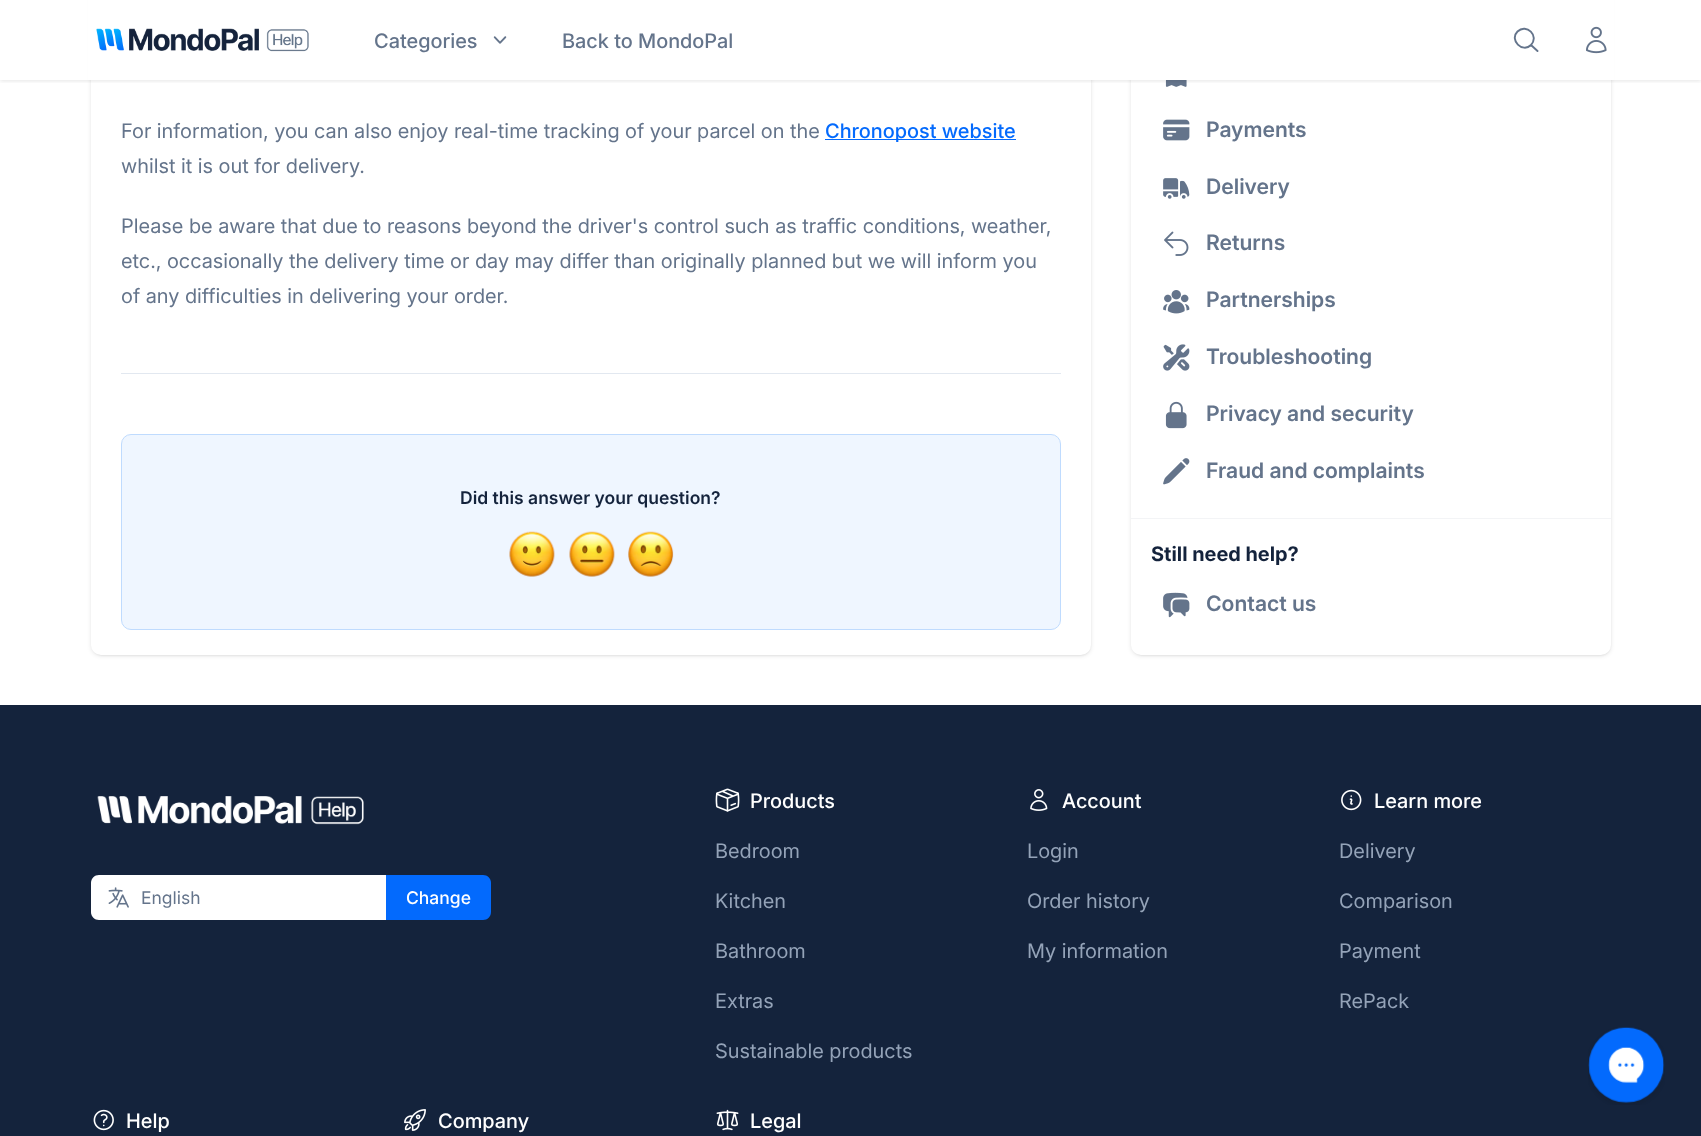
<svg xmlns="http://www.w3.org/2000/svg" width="1701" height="1136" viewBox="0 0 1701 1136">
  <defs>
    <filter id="blur1" x="-50%" y="-200%" width="200%" height="500%"><feGaussianBlur stdDeviation="1"/></filter>
    <filter id="blur2" x="-50%" y="-200%" width="200%" height="500%"><feGaussianBlur stdDeviation="2"/></filter>
    <clipPath id="clip1"><rect x="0" y="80" width="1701" height="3"/></clipPath>
  </defs>
  <rect width="100%" height="100%" fill="#ffffff"/>
  <rect x="93" y="-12" width="997" height="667" rx="9" fill="#000000" fill-opacity="0.1" filter="url(#blur1)"/>
  <rect x="91" y="-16" width="1000" height="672" rx="10" fill="#000000" fill-opacity="0.1" filter="url(#blur2)"/>
  <rect x="91" y="-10" width="1000" height="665" rx="10" fill="#ffffff"/>
  <rect x="1133" y="-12" width="477" height="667" rx="9" fill="#000000" fill-opacity="0.1" filter="url(#blur1)"/>
  <rect x="1131" y="-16" width="480" height="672" rx="10" fill="#000000" fill-opacity="0.1" filter="url(#blur2)"/>
  <rect x="1131" y="-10" width="480" height="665" rx="10" fill="#ffffff"/>
  <rect x="88" y="0" width="1526" height="80" fill="#ffffff"/>
  <image x="96" y="28" width="213" height="24" href="img1.png"/>
  <image x="493" y="36" width="14" height="8" href="img2.png"/>
  <path d="M1537.5 51L1531 45M1531 45C1539.5 36 1526.5 23 1517.5 31.5C1509 40 1522.5 53.5 1531 45Z" fill="none" stroke="#64748b" stroke-width="1.9" stroke-linecap="round" stroke-linejoin="round"/>
  <image x="1586" y="26" width="21" height="28" href="img3.png"/>
  <image x="1165" y="80" width="22" height="7" href="img7.png"/>
  <g clip-path="url(#clip1)">
    <rect x="0" y="1" width="1701" height="80" fill="#000000" fill-opacity="0.1" filter="url(#blur2)"/>
  </g>
  <text x="374" y="48" font-family="Inter" font-size="20" font-weight="500" fill="#64748b">Categories</text>
  <text x="562" y="48" font-family="Inter" font-size="20" font-weight="500" fill="#64748b">Back to MondoPal</text>
  <text x="121" y="138" font-family="Inter" font-size="20" fill="#64748b">For information, you can also enjoy real-time tracking of your parcel on the</text>
  <rect x="825" y="139" width="191" height="1" fill="#036afd"/>
  <text x="825" y="138" font-family="Inter" font-size="20" font-weight="500" fill="#036afd">Chronopost website</text>
  <text x="121" y="173" font-family="Inter" font-size="20" fill="#64748b">whilst it is out for delivery.</text>
  <text x="121" y="233" font-family="Inter" font-size="20" fill="#64748b">Please be aware that due to reasons beyond the driver's control such as traffic conditions, weather,</text>
  <text x="121" y="268" font-family="Inter" font-size="20" fill="#64748b">etc., occasionally the delivery time or day may differ than originally planned but we will inform you</text>
  <text x="121" y="303" font-family="Inter" font-size="20" fill="#64748b">of any difficulties in delivering your order.</text>
  <rect x="121" y="373" width="940" height="1" fill="#e2e8f0"/>
  <rect x="121.5" y="434.5" width="939" height="195" rx="9.5" fill="#eff6ff" stroke="#bfdbfe"/>
  <text x="460" y="504" font-family="Inter" font-size="17.5" font-weight="600" fill="#14233c">Did this answer your question?</text>
  <image x="509" y="531" width="46" height="46" href="img4.png"/>
  <image x="569" y="531" width="46" height="46" href="img5.png"/>
  <image x="628" y="531" width="46" height="46" href="img6.png"/>
  <image x="1163" y="119" width="27" height="22" href="img8.png"/>
  <text x="1206" y="137" font-family="'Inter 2'" font-size="21.25" font-weight="600" fill="#64748b">Payments</text>
  <image x="1163" y="178" width="27" height="21" href="img9.png"/>
  <text x="1206" y="194" font-family="'Inter 2'" font-size="21.25" font-weight="600" fill="#64748b">Delivery</text>
  <image x="1164" y="231" width="25" height="25" href="img10.png"/>
  <text x="1206" y="250" font-family="'Inter 2'" font-size="21.25" font-weight="600" fill="#64748b">Returns</text>
  <image x="1163" y="290" width="27" height="24" href="img11.png"/>
  <text x="1206" y="307" font-family="'Inter 2'" font-size="21.25" font-weight="600" fill="#64748b">Partnerships</text>
  <image x="1163" y="344" width="27" height="27" href="img12.png"/>
  <text x="1206" y="364" font-family="'Inter 2'" font-size="21.25" font-weight="600" fill="#64748b">Troubleshooting</text>
  <image x="1165" y="401" width="22" height="28" href="img13.png"/>
  <text x="1206" y="421" font-family="'Inter 2'" font-size="21.25" font-weight="600" fill="#64748b">Privacy and security</text>
  <image x="1163" y="458" width="27" height="27" href="img14.png"/>
  <text x="1206" y="478" font-family="'Inter 2'" font-size="21.25" font-weight="600" fill="#64748b">Fraud and complaints</text>
  <rect x="1131" y="518" width="480" height="1" fill="#f3f4f6"/>
  <text x="1151" y="561" font-family="Inter" font-size="20" font-weight="bold" fill="#14233c">Still need help?</text>
  <image x="1163" y="592" width="27" height="26" href="img15.png"/>
  <text x="1206" y="611" font-family="'Inter 2'" font-size="21.25" font-weight="600" fill="#64748b">Contact us</text>
  <rect x="0" y="705" width="1701" height="431" fill="#14233c"/>
  <image x="97" y="796" width="267" height="29" href="img16.png"/>
  <path d="M99 875H388V920H99C94.5 920 91 916.5 91 912V883C91 878.5 94.5 875 99 875Z" fill="#ffffff"/>
  <image x="108" y="887" width="21" height="21" href="img17.png"/>
  <text x="141" y="904" font-family="'Inter 2'" font-size="17.5" fill="#64748b">English</text>
  <path d="M386 875H483C487.5 875 491 878.5 491 883V912C491 916.5 487.5 920 483 920H386Z" fill="#036afd"/>
  <text x="406" y="904" font-family="'Inter 2'" font-size="17.5" font-weight="500" fill="#ffffff">Change</text>
  <image x="715" y="788" width="25" height="24" href="img18.png"/>
  <text x="750" y="808" font-family="Inter" font-size="20" font-weight="500" fill="#ffffff">Products</text>
  <text x="715" y="858" font-family="Inter" font-size="20" fill="#94a3b8">Bedroom</text>
  <text x="715" y="908" font-family="Inter" font-size="20" fill="#94a3b8">Kitchen</text>
  <text x="715" y="958" font-family="Inter" font-size="20" fill="#94a3b8">Bathroom</text>
  <text x="715" y="1008" font-family="Inter" font-size="20" fill="#94a3b8">Extras</text>
  <text x="715" y="1058" font-family="Inter" font-size="20" fill="#94a3b8">Sustainable products</text>
  <image x="1030" y="789" width="18" height="22" href="img19.png"/>
  <text x="1062" y="808" font-family="Inter" font-size="20" font-weight="500" fill="#ffffff">Account</text>
  <text x="1027" y="858" font-family="Inter" font-size="20" fill="#94a3b8">Login</text>
  <text x="1027" y="908" font-family="Inter" font-size="20" fill="#94a3b8">Order history</text>
  <text x="1027" y="958" font-family="Inter" font-size="20" fill="#94a3b8">My information</text>
  <image x="1341" y="789" width="21" height="22" href="img20.png"/>
  <text x="1374" y="808" font-family="Inter" font-size="20" font-weight="500" fill="#ffffff">Learn more</text>
  <text x="1339" y="858" font-family="Inter" font-size="20" fill="#94a3b8">Delivery</text>
  <text x="1339" y="908" font-family="Inter" font-size="20" fill="#94a3b8">Comparison</text>
  <text x="1339" y="958" font-family="Inter" font-size="20" fill="#94a3b8">Payment</text>
  <text x="1339" y="1008" font-family="Inter" font-size="20" fill="#94a3b8">RePack</text>
  <image x="93" y="1109" width="21" height="22" href="img21.png"/>
  <text x="126" y="1128" font-family="Inter" font-size="20" font-weight="500" fill="#ffffff">Help</text>
  <image x="404" y="1109" width="22" height="22" href="img22.png"/>
  <text x="438" y="1128" font-family="Inter" font-size="20" font-weight="500" fill="#ffffff">Company</text>
  <image x="716" y="1109" width="23" height="22" href="img23.png"/>
  <text x="750" y="1128" font-family="Inter" font-size="20" font-weight="500" fill="#ffffff">Legal</text>
  <image x="1588" y="1027" width="77" height="78" href="img24.png"/>
</svg>
